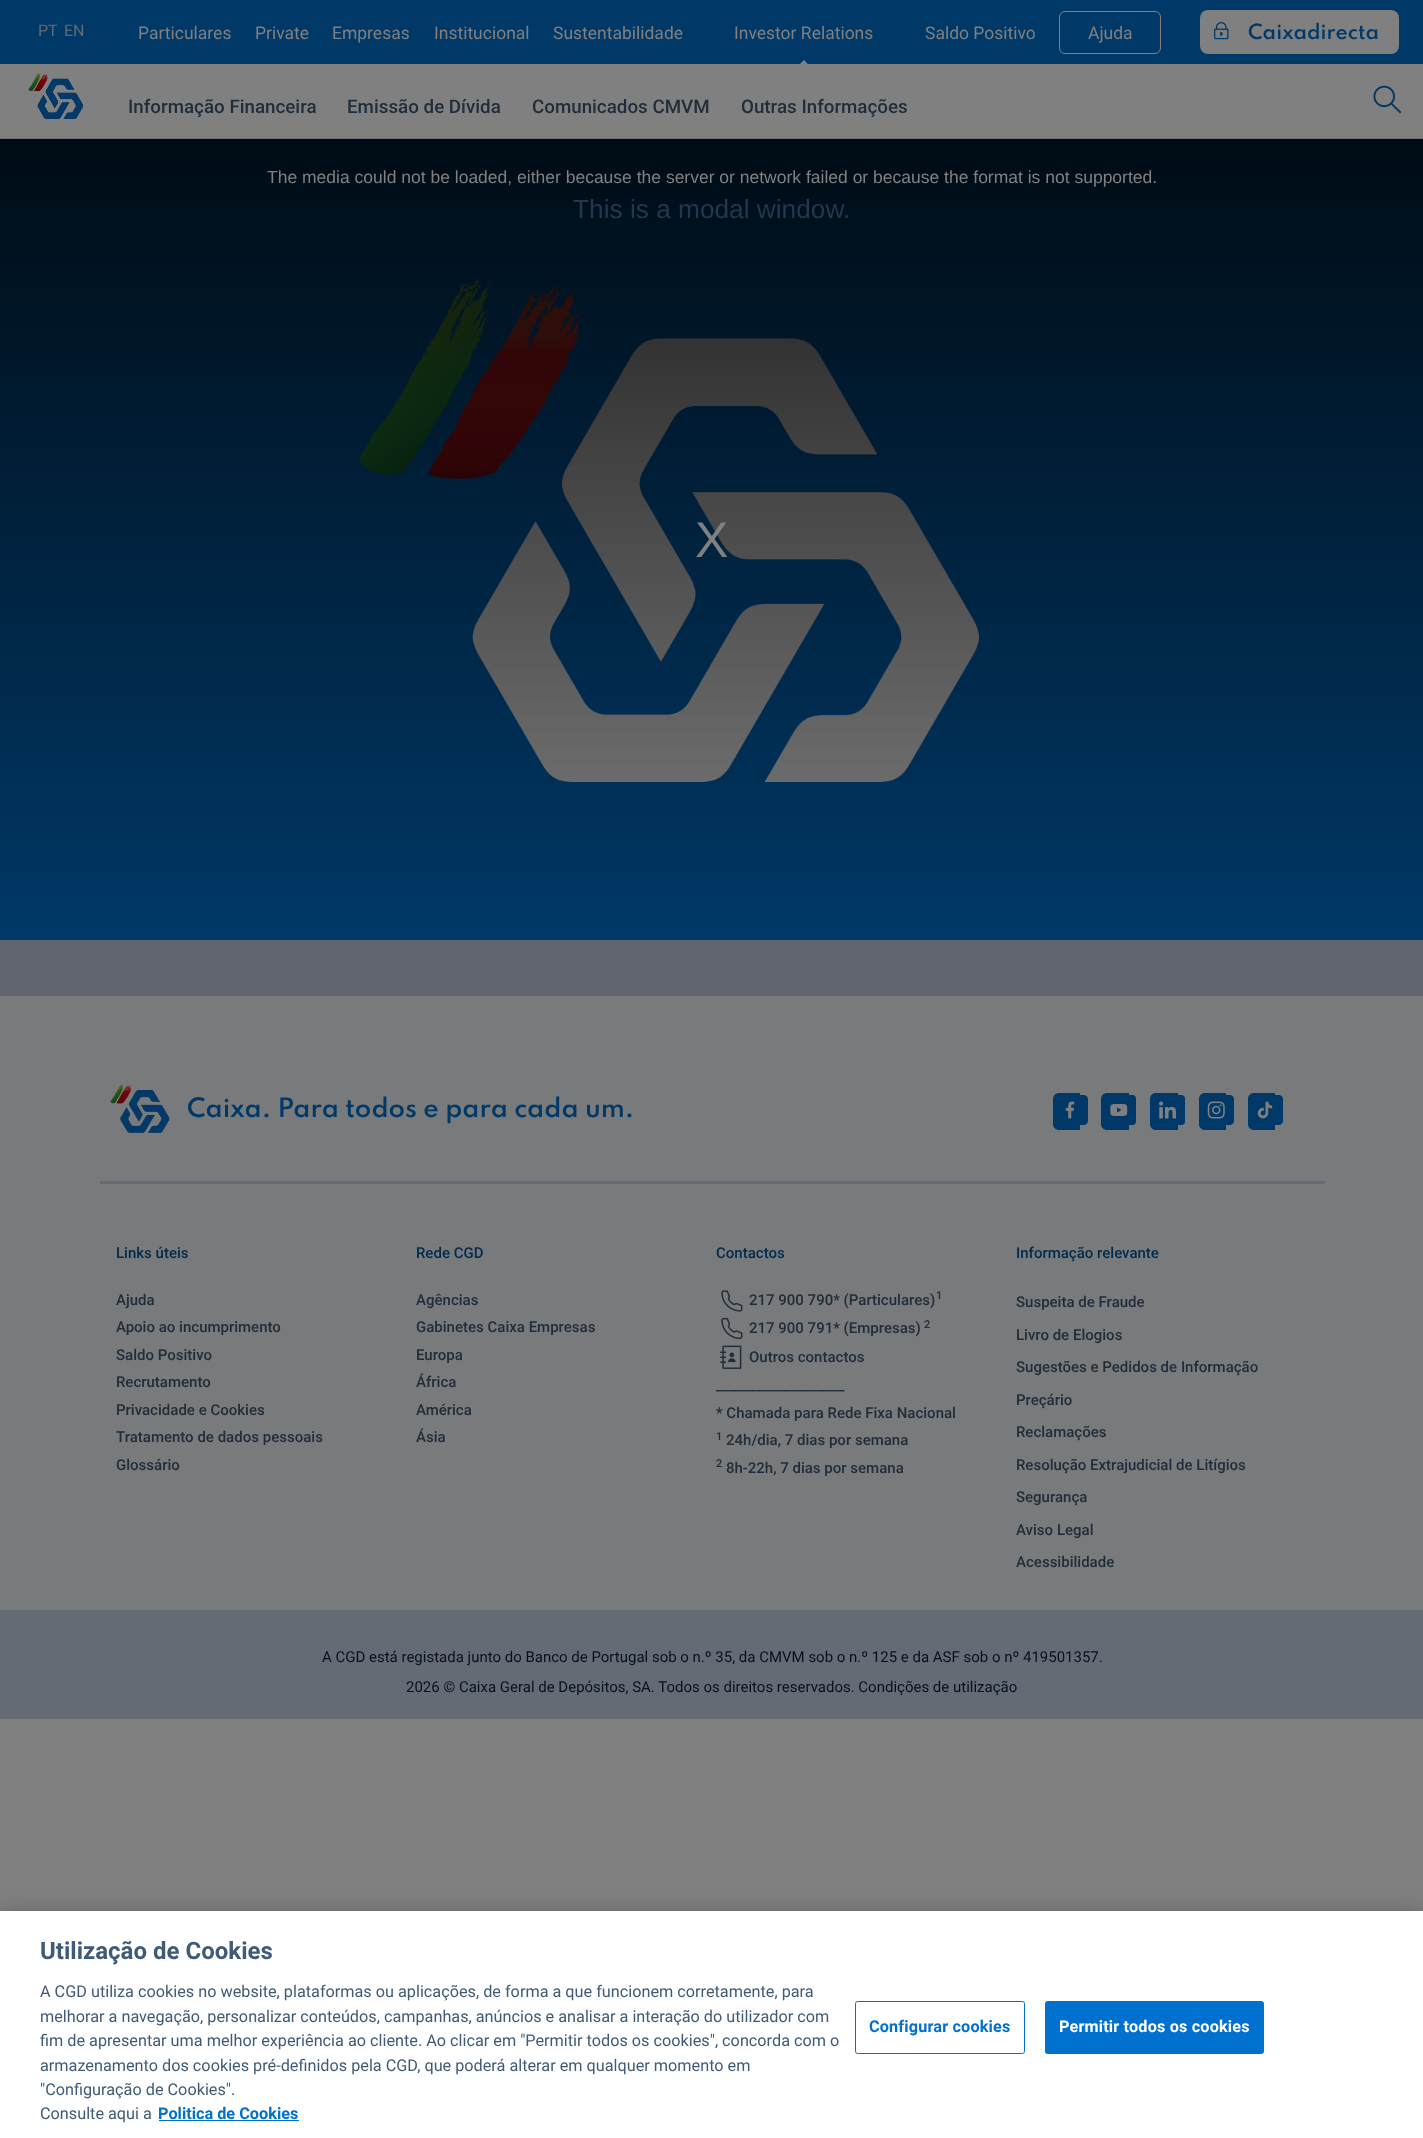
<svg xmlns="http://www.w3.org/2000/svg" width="1423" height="2138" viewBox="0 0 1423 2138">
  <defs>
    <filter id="blur1" x="-50%" y="-200%" width="200%" height="500%"><feGaussianBlur stdDeviation="11"/></filter>
  </defs>
  <rect width="100%" height="100%" fill="#808080"/>
  <rect x="0" y="0" width="1423" height="64" fill="#003967"/>
  <text x="38" y="36" font-family="Roboto" font-size="16" fill="#656b74">PT</text>
  <text x="64" y="36" font-family="Roboto" font-size="16" fill="#656b74">EN</text>
  <text x="138" y="39" font-family="Roboto" font-size="17.5" fill="#808080">Particulares</text>
  <text x="255" y="39" font-family="Roboto" font-size="17.5" fill="#808080">Private</text>
  <text x="332" y="39" font-family="Roboto" font-size="17.5" fill="#808080">Empresas</text>
  <text x="434" y="39" font-family="Roboto" font-size="17.5" fill="#808080">Institucional</text>
  <text x="553" y="39" font-family="Roboto" font-size="17.5" fill="#808080">Sustentabilidade</text>
  <text x="734" y="39" font-family="Roboto" font-size="17.5" fill="#808080">Investor Relations</text>
  <path d="M812.5 69H795L804 60Z" fill="#808080"/>
  <text x="925" y="39" font-family="Roboto" font-size="17.5" fill="#808080">Saldo Positivo</text>
  <rect x="1059.5" y="11.5" width="101" height="42" rx="5.5" fill="none" stroke="#808080"/>
  <text x="1088" y="39" font-family="Roboto" font-size="17.5" fill="#808080">Ajuda</text>
  <rect x="1200" y="10" width="199" height="44" rx="8" fill="#808080"/>
  <image x="1214" y="22" width="15" height="18" href="img1.png"/>
  <text x="1248" y="39" font-family="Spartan" font-size="18.75" font-weight="600" fill="#003967">Caixadirecta</text>
  <rect x="0" y="138" width="1423" height="1" fill="#6d6f71"/>
  <image x="28" y="73" width="55" height="46" href="img2.png"/>
  <text x="128" y="113" font-family="Roboto" font-size="18.75" font-weight="500" fill="#202e3c">Informação Financeira</text>
  <text x="347" y="113" font-family="Roboto" font-size="18.75" font-weight="500" fill="#202e3c">Emissão de Dívida</text>
  <text x="532" y="113" font-family="Roboto" font-size="18.75" font-weight="500" fill="#202e3c">Comunicados CMVM</text>
  <text x="741" y="113" font-family="Roboto" font-size="18.75" font-weight="500" fill="#202e3c">Outras Informações</text>
  <image x="1373" y="85" width="29" height="29" href="img3.png"/>
  <rect x="0" y="940" width="1423" height="56" fill="#60656e"/>
  <image x="0" y="139" width="1423" height="801" href="img4.png"/>
  <text x="267" y="183" font-family="Liberation Sans" font-size="17.5" fill="#808080">The media could not be loaded, either because the server or network failed or because the format is not supported.</text>
  <text x="573" y="218" font-family="Liberation Sans" font-size="26.25" fill="#26364f">This is a modal window.</text>
  <text x="695" y="557" font-family="Liberation Sans" font-size="50" fill="#808080">X</text>
  <rect x="0" y="996" width="1423" height="614" fill="#797a7c"/>
  <rect x="100" y="1181" width="1225" height="3" fill="#656b74"/>
  <path d="M1059 1093H1080V1130H1059C1055.5 1130 1053 1127.5 1053 1124V1099C1053 1095.5 1055.5 1093 1059 1093Z" fill="#003967"/>
  <path d="M1080 1095H1084C1086 1095 1088 1097 1088 1099V1121C1088 1123 1086 1125 1084 1125H1080Z" fill="#003967"/>
  <path d="M1107 1093H1129V1130H1107C1103.5 1130 1101 1127.5 1101 1124V1099C1101 1095.5 1103.5 1093 1107 1093Z" fill="#003967"/>
  <path d="M1129 1095H1132.5C1134.5 1095 1136 1096.5 1136 1098.5V1121.5C1136 1123.5 1134.5 1125 1132.5 1125H1129Z" fill="#003967"/>
  <path d="M1156 1093H1178V1130H1156C1152.5 1130 1150 1127.5 1150 1124V1099C1150 1095.5 1152.5 1093 1156 1093Z" fill="#003967"/>
  <path d="M1178 1095H1181.5C1183.5 1095 1185 1096.5 1185 1098.5V1121.5C1185 1123.5 1183.5 1125 1181.5 1125H1178Z" fill="#003967"/>
  <path d="M1205 1093H1226V1130H1205C1201.5 1130 1199 1127.5 1199 1124V1099C1199 1095.5 1201.5 1093 1205 1093Z" fill="#003967"/>
  <path d="M1226 1095H1230C1232 1095 1234 1097 1234 1099V1121C1234 1123 1232 1125 1230 1125H1226Z" fill="#003967"/>
  <path d="M1254 1093H1275V1130H1254C1250.5 1130 1248 1127.5 1248 1124V1099C1248 1095.5 1250.5 1093 1254 1093Z" fill="#003967"/>
  <path d="M1275 1095H1279C1281 1095 1283 1097 1283 1099V1121C1283 1123 1281 1125 1279 1125H1275Z" fill="#003967"/>
  <image x="1065" y="1101" width="10" height="18" href="img5.png"/>
  <image x="1110" y="1104" width="18" height="12" href="img6.png"/>
  <image x="1159" y="1101" width="17" height="18" href="img7.png"/>
  <image x="1207" y="1101" width="18" height="18" href="img8.png"/>
  <image x="1257" y="1101" width="16" height="18" href="img9.png"/>
  <image x="110" y="1084" width="60" height="49" href="img10.png"/>
  <text x="187" y="1117" font-family="Spartan" font-size="23.75" font-weight="600" fill="#003967">Caixa. Para todos e para cada um.</text>
  <text x="116" y="1258" font-family="Roboto" font-size="15" font-weight="500" fill="#002b4d">Links úteis</text>
  <text x="116" y="1305" font-family="Roboto" font-size="15" font-weight="500" fill="#202e3c">Ajuda</text>
  <text x="116" y="1332" font-family="Roboto" font-size="15" font-weight="500" fill="#202e3c">Apoio ao incumprimento</text>
  <text x="116" y="1360" font-family="Roboto" font-size="15" font-weight="500" fill="#202e3c">Saldo Positivo</text>
  <text x="116" y="1387" font-family="Roboto" font-size="15" font-weight="500" fill="#202e3c">Recrutamento</text>
  <text x="116" y="1415" font-family="Roboto" font-size="15" font-weight="500" fill="#202e3c">Privacidade e Cookies</text>
  <text x="116" y="1442" font-family="Roboto" font-size="15" font-weight="500" fill="#202e3c">Tratamento de dados pessoais</text>
  <text x="116" y="1470" font-family="Roboto" font-size="15" font-weight="500" fill="#202e3c">Glossário</text>
  <text x="416" y="1258" font-family="Roboto" font-size="15" font-weight="500" fill="#002b4d">Rede CGD</text>
  <text x="416" y="1305" font-family="Roboto" font-size="15" font-weight="500" fill="#202e3c">Agências</text>
  <text x="416" y="1332" font-family="Roboto" font-size="15" font-weight="500" fill="#202e3c">Gabinetes Caixa Empresas</text>
  <text x="416" y="1360" font-family="Roboto" font-size="15" font-weight="500" fill="#202e3c">Europa</text>
  <text x="416" y="1387" font-family="Roboto" font-size="15" font-weight="500" fill="#202e3c">África</text>
  <text x="416" y="1415" font-family="Roboto" font-size="15" font-weight="500" fill="#202e3c">América</text>
  <text x="416" y="1442" font-family="Roboto" font-size="15" font-weight="500" fill="#202e3c">Ásia</text>
  <text x="716" y="1258" font-family="Roboto" font-size="15" font-weight="500" fill="#002b4d">Contactos</text>
  <image x="721" y="1290" width="22" height="22" href="img11.png"/>
  <text x="749" y="1305" font-family="Roboto" font-size="15" font-weight="500" fill="#202e3c">217 900 790* (Particulares)</text>
  <text x="936" y="1299" font-family="Roboto" font-size="11" font-weight="500" fill="#202e3c">1</text>
  <image x="721" y="1317" width="22" height="23" href="img12.png"/>
  <text x="749" y="1333" font-family="Roboto" font-size="15" font-weight="500" fill="#202e3c">217 900 791* (Empresas)</text>
  <text x="924" y="1328" font-family="Roboto" font-size="11" font-weight="500" fill="#202e3c">2</text>
  <image x="720" y="1345" width="22" height="24" href="img13.png"/>
  <text x="749" y="1362" font-family="Roboto" font-size="15" font-weight="500" fill="#202e3c">Outros contactos</text>
  <text x="716" y="1390" font-family="Roboto" font-size="15" font-weight="500" fill="#202e3c">___________________</text>
  <text x="716" y="1418" font-family="Roboto" font-size="15" font-weight="500" fill="#202e3c">* Chamada para Rede Fixa Nacional</text>
  <text x="716" y="1440" font-family="Roboto" font-size="11" font-weight="500" fill="#202e3c">1</text>
  <text x="726" y="1445" font-family="Roboto" font-size="15" font-weight="500" fill="#202e3c">24h/dia, 7 dias por semana</text>
  <text x="716" y="1467" font-family="Roboto" font-size="11" font-weight="500" fill="#202e3c">2</text>
  <text x="726" y="1473" font-family="Roboto" font-size="15" font-weight="500" fill="#202e3c">8h-22h, 7 dias por semana</text>
  <text x="1016" y="1258" font-family="Roboto" font-size="15" font-weight="500" fill="#002b4d">Informação relevante</text>
  <text x="1016" y="1307" font-family="Roboto" font-size="15" font-weight="500" fill="#202e3c">Suspeita de Fraude</text>
  <text x="1016" y="1340" font-family="Roboto" font-size="15" font-weight="500" fill="#202e3c">Livro de Elogios</text>
  <text x="1016" y="1372" font-family="Roboto" font-size="15" font-weight="500" fill="#202e3c">Sugestões e Pedidos de Informação</text>
  <text x="1016" y="1405" font-family="Roboto" font-size="15" font-weight="500" fill="#202e3c">Preçário</text>
  <text x="1016" y="1437" font-family="Roboto" font-size="15" font-weight="500" fill="#202e3c">Reclamações</text>
  <text x="1016" y="1470" font-family="Roboto" font-size="15" font-weight="500" fill="#202e3c">Resolução Extrajudicial de Litígios</text>
  <text x="1016" y="1502" font-family="Roboto" font-size="15" font-weight="500" fill="#202e3c">Segurança</text>
  <text x="1016" y="1535" font-family="Roboto" font-size="15" font-weight="500" fill="#202e3c">Aviso Legal</text>
  <text x="1016" y="1567" font-family="Roboto" font-size="15" font-weight="500" fill="#202e3c">Acessibilidade</text>
  <rect x="0" y="1610" width="1423" height="109" fill="#656b74"/>
  <text x="322" y="1662" font-family="Roboto" font-size="15" fill="#05121f">A CGD está registada junto do Banco de Portugal sob o n.º 35, da CMVM sob o n.º 125 e da ASF sob o nº 419501357.</text>
  <text x="406" y="1692" font-family="Roboto" font-size="15" fill="#05121f">2026 © Caixa Geral de Depósitos, SA. Todos os direitos reservados. Condições de utilização</text>
  <rect x="0" y="1911" width="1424" height="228" fill="#000000" fill-opacity="0.2" filter="url(#blur1)"/>
  <rect x="0" y="1911" width="1423" height="227" fill="#ffffff"/>
  <text x="40" y="1959" font-family="Roboto" font-size="24" font-weight="bold" fill="#3f5b78">Utilização de Cookies</text>
  <text x="40" y="1997" font-family="Roboto" font-size="16.25" fill="#3f5b78">A CGD utiliza cookies no website, plataformas ou aplicações, de forma a que funcionem corretamente, para</text>
  <text x="40" y="2022" font-family="Roboto" font-size="16.25" fill="#3f5b78">melhorar a navegação, personalizar conteúdos, campanhas, anúncios e analisar a interação do utilizador com</text>
  <text x="40" y="2046" font-family="Roboto" font-size="16.25" fill="#3f5b78">fim de apresentar uma melhor experiência ao cliente. Ao clicar em "Permitir todos os cookies", concorda com o</text>
  <text x="40" y="2071" font-family="Roboto" font-size="16.25" fill="#3f5b78">armazenamento dos cookies pré-definidos pela CGD, que poderá alterar em qualquer momento em</text>
  <text x="40" y="2095" font-family="Roboto" font-size="16.25" fill="#3f5b78">"Configuração de Cookies".</text>
  <text x="40" y="2119" font-family="Roboto" font-size="16.25" fill="#3f5b78">Consulte aqui a</text>
  <text x="158" y="2119" font-family="Roboto" font-size="16.25" font-weight="bold" fill="#0071ce">Politica de Cookies</text>
  <rect x="159" y="2120" width="140" height="1" fill="#0071ce"/>
  <rect x="855.5" y="2001.5" width="169" height="52" rx="2" fill="none" stroke="#0071ce"/>
  <text x="869" y="2032" font-family="Roboto" font-size="16.25" font-weight="bold" letter-spacing="0.15" fill="#0071ce">Configurar cookies</text>
  <rect x="1045.5" y="2001.5" width="218" height="52" rx="2" fill="#0071ce" stroke="#0071ce"/>
  <text x="1059" y="2032" font-family="Roboto" font-size="16.25" font-weight="bold" letter-spacing="0.15" fill="#ffffff">Permitir todos os cookies</text>
</svg>
